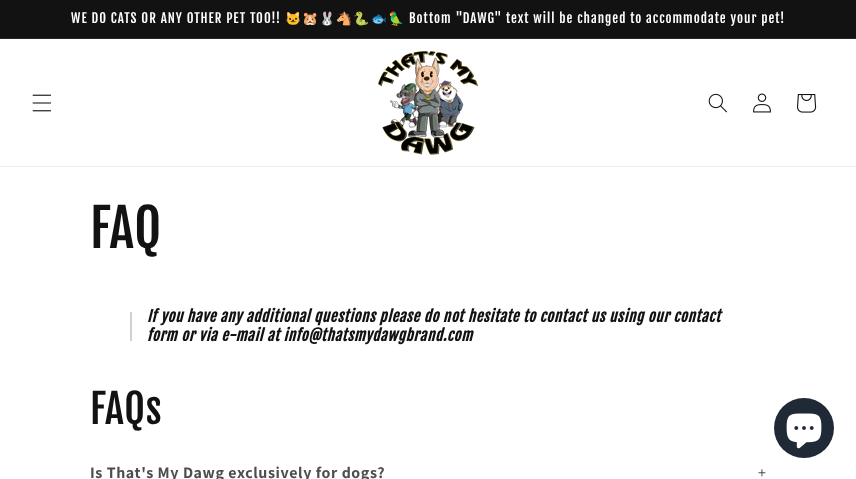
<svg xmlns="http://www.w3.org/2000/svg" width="856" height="479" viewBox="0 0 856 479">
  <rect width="100%" height="100%" fill="#ffffff"/>
  <rect x="0" y="0" width="856" height="38" fill="#121212"/>
  <rect x="0" y="38" width="856" height="1" fill="#252525"/>
  <text x="71" y="23" font-family="Fjalla One" font-size="13" letter-spacing="1" fill="#ffffff">WE DO CATS OR ANY OTHER PET TOO!!</text>
  <text x="285" y="23" font-family="Noto Color Emoji" font-size="13" letter-spacing="1" fill="#ffffff">🐱🐹🐰🐴🐍🐟🦜</text>
  <text x="409" y="23" font-family="Fjalla One" font-size="13" letter-spacing="1" fill="#ffffff">Bottom "DAWG" text will be changed to accommodate your pet!</text>
  <rect x="0" y="166" width="856" height="1" fill="#ececec"/>
  <image x="32" y="94" width="20" height="18" href="img1.png"/>
  <image x="378" y="51" width="100" height="104" href="img2.png"/>
  <image x="708" y="93" width="19" height="20" href="img3.png"/>
  <image x="753" y="93" width="18" height="20" href="img4.png"/>
  <image x="797" y="94" width="20" height="19" href="img5.png"/>
  <text x="90" y="248" font-family="Fjalla One" font-size="52" letter-spacing="0.6" fill="#121212">FAQ</text>
  <rect x="130" y="312" width="2" height="29" fill="#d0d0d0"/>
  <text x="147" y="322" font-family="Fjalla One" font-size="15" font-weight="bold" font-style="italic" letter-spacing="0.6" fill="#121212">If you have any additional questions please do not hesitate to contact us using our contact</text>
  <text x="147" y="341" font-family="Fjalla One" font-size="15" font-weight="bold" font-style="italic" letter-spacing="0.6" fill="#121212">form or via e-mail at info@thatsmydawgbrand.com</text>
  <text x="90" y="424" font-family="Fjalla One" font-size="40" letter-spacing="0.6" fill="#121212">FAQs</text>
  <text x="90" y="478" font-family="Assistant" font-size="16" font-weight="bold" letter-spacing="0.6" fill="#4d4d4d">Is That's My Dawg exclusively for dogs?</text>
  <text x="758" y="478" font-family="Assistant" font-size="16" letter-spacing="0.6" fill="#4d4d4d">+</text>
  <circle cx="804" cy="428" r="30" fill="#202a36"/>
  <image x="786" y="413" width="36" height="36" href="img6.png"/>
</svg>
